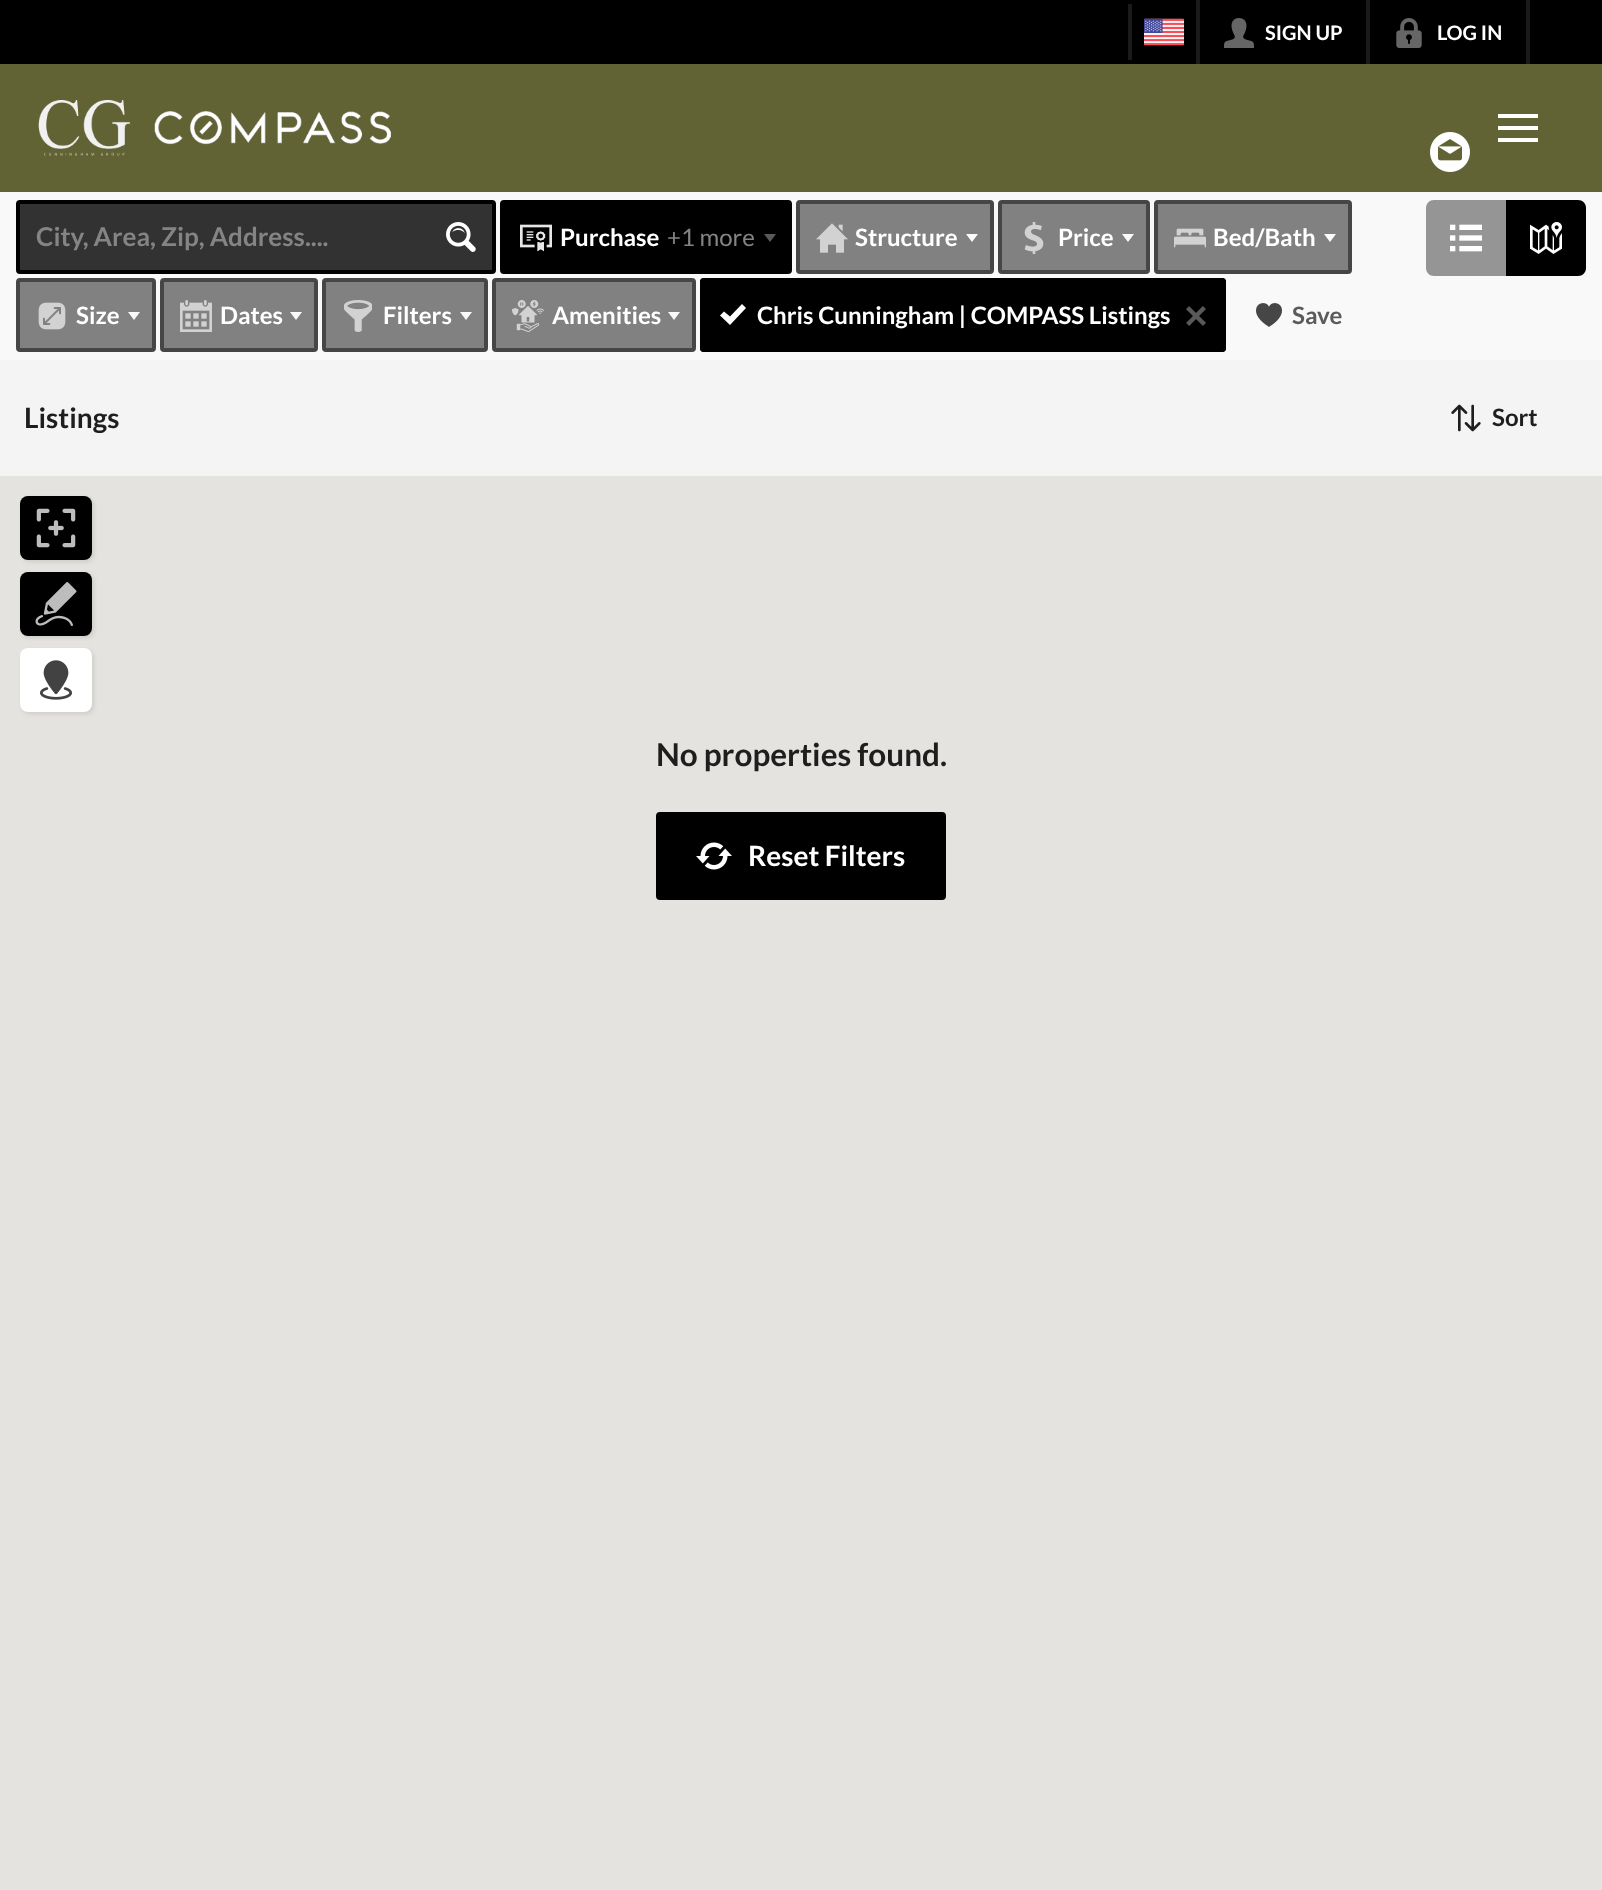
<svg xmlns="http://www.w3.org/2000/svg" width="1602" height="1890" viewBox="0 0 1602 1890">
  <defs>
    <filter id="blur1" x="-50%" y="-200%" width="200%" height="500%"><feGaussianBlur stdDeviation="2"/></filter>
  </defs>
  <rect width="100%" height="100%" fill="#f9f9f9"/>
  <rect x="0" y="0" width="1602" height="64" fill="#000000"/>
  <rect x="1128" y="4" width="4" height="56" fill="#1a1a1a"/>
  <image x="1144" y="18" width="40" height="28" href="img1.png"/>
  <rect x="1526" y="0" width="4" height="64" fill="#1a1a1a"/>
  <rect x="1196" y="0" width="4" height="64" fill="#1a1a1a"/>
  <image x="1224" y="18" width="30" height="30" href="img2.png"/>
  <text x="1265" y="40" font-family="Lato" font-size="20" font-weight="bold" fill="#ffffff">SIGN UP</text>
  <rect x="1366" y="0" width="4" height="64" fill="#1a1a1a"/>
  <image x="1396" y="18" width="26" height="30" href="img3.png"/>
  <text x="1437" y="40" font-family="Lato" font-size="20" font-weight="bold" fill="#ffffff">LOG IN</text>
  <rect x="0" y="64" width="1602" height="128" fill="#626334"/>
  <image x="38" y="100" width="353" height="56" href="img4.png"/>
  <rect x="1498" y="114" width="40" height="4" fill="#ffffff"/>
  <rect x="1498" y="126" width="40" height="4" fill="#ffffff"/>
  <rect x="1498" y="138" width="40" height="4" fill="#ffffff"/>
  <image x="1430" y="132" width="40" height="40" href="img5.png"/>
  <rect x="18" y="202" width="476" height="70" rx="2" fill="#323232" stroke="#000000" stroke-width="4"/>
  <text x="36" y="246" font-family="Lato" font-size="26" font-weight="bold" fill="#848484">City, Area, Zip, Address....</text>
  <image x="446" y="222" width="30" height="30" href="img6.png"/>
  <rect x="502" y="202" width="288" height="70" rx="2" fill="#000000" stroke="#000000" stroke-width="4"/>
  <image x="520" y="224" width="32" height="28" href="img7.png"/>
  <text x="560" y="246" font-family="Lato" font-size="24" font-weight="bold" fill="#ffffff">Purchase</text>
  <text x="667" y="246" font-family="Lato" font-size="24" fill="#848484">+1 more</text>
  <path d="M764 234H776L770 242Z" fill="#595959"/>
  <rect x="798" y="202" width="194" height="70" rx="2" fill="#818181" stroke="#464646" stroke-width="4"/>
  <image x="816" y="223" width="32" height="30" href="img8.png"/>
  <text x="855" y="246" font-family="Lato" font-size="24" font-weight="bold" fill="#ffffff">Structure</text>
  <path d="M966 234H978L972 242Z" fill="#fbfbfb"/>
  <rect x="1000" y="202" width="148" height="70" rx="2" fill="#818181" stroke="#464646" stroke-width="4"/>
  <image x="1024" y="222" width="20" height="32" href="img9.png"/>
  <text x="1058" y="246" font-family="Lato" font-size="24" font-weight="bold" fill="#ffffff">Price</text>
  <path d="M1122 234H1134L1128 242Z" fill="#fbfbfb"/>
  <rect x="1156" y="202" width="194" height="70" rx="2" fill="#818181" stroke="#464646" stroke-width="4"/>
  <image x="1174" y="228" width="32" height="20" href="img10.png"/>
  <text x="1213" y="246" font-family="Lato" font-size="24" font-weight="bold" fill="#ffffff">Bed/Bath</text>
  <path d="M1324 234H1336L1330 242Z" fill="#fbfbfb"/>
  <rect x="18" y="280" width="136" height="70" rx="2" fill="#818181" stroke="#464646" stroke-width="4"/>
  <image x="38" y="302" width="28" height="28" href="img11.png"/>
  <text x="76" y="324" font-family="Lato" font-size="24" font-weight="bold" fill="#ffffff">Size</text>
  <path d="M128 312H140L134 320Z" fill="#fbfbfb"/>
  <rect x="162" y="280" width="154" height="70" rx="2" fill="#818181" stroke="#464646" stroke-width="4"/>
  <image x="180" y="300" width="32" height="32" href="img12.png"/>
  <text x="220" y="324" font-family="Lato" font-size="24" font-weight="bold" fill="#ffffff">Dates</text>
  <path d="M290 312H302L296 320Z" fill="#fbfbfb"/>
  <rect x="324" y="280" width="162" height="70" rx="2" fill="#818181" stroke="#464646" stroke-width="4"/>
  <image x="344" y="300" width="28" height="32" href="img13.png"/>
  <text x="383" y="324" font-family="Lato" font-size="24" font-weight="bold" fill="#ffffff">Filters</text>
  <path d="M460 312H472L466 320Z" fill="#fbfbfb"/>
  <rect x="494" y="280" width="200" height="70" rx="2" fill="#818181" stroke="#464646" stroke-width="4"/>
  <image x="512" y="300" width="32" height="32" href="img14.png"/>
  <text x="552" y="324" font-family="Lato" font-size="24" font-weight="bold" fill="#ffffff">Amenities</text>
  <path d="M668 312H680L674 320Z" fill="#fbfbfb"/>
  <rect x="700" y="278" width="526" height="74" rx="4" fill="#000000"/>
  <rect x="702" y="280" width="522" height="70" rx="2" fill="#000000" fill-opacity="0.67" stroke="#000000" stroke-width="4"/>
  <path d="M742 304L730 316.5L724 311.5L720 315.5L730 325L746 308Z" fill="#ffffff"/>
  <text x="757" y="324" font-family="Lato" font-size="24" font-weight="bold" fill="#ffffff">Chris Cunningham | COMPASS Listings</text>
  <image x="1186" y="306" width="20" height="20" href="img15.png"/>
  <image x="1256" y="303" width="26" height="24" href="img16.png"/>
  <text x="1292" y="324" font-family="Lato" font-size="24" font-weight="bold" fill="#5b5b5b">Save</text>
  <path d="M1434 200H1506V276H1434C1429.5 276 1426 272.5 1426 268V208C1426 203.5 1429.5 200 1434 200Z" fill="#959595"/>
  <image x="1450" y="224" width="32" height="28" href="img17.png"/>
  <path d="M1506 200H1578C1582.5 200 1586 203.5 1586 208V268C1586 272.5 1582.5 276 1578 276H1506Z" fill="#000000"/>
  <image x="1530" y="222" width="32" height="32" href="img18.png"/>
  <rect x="0" y="360" width="1602" height="116" fill="#f4f4f4"/>
  <text x="24" y="428" font-family="Lato" font-size="28" font-weight="bold" fill="#1e1e1e">Listings</text>
  <image x="1451" y="404" width="30" height="28" href="img19.png"/>
  <text x="1492" y="426" font-family="Lato" font-size="24" font-weight="bold" fill="#1e1e1e">Sort</text>
  <rect x="0" y="476" width="1602" height="1414" fill="#e5e3df"/>
  <text x="656" y="766" font-family="Lato" font-size="31.5" font-weight="bold" fill="#1e1e1e">No properties found.</text>
  <rect x="658" y="814" width="286" height="84" rx="2" fill="#000000" stroke="#000000" stroke-width="4"/>
  <image x="696" y="842" width="36" height="28" href="img20.png"/>
  <text x="748" y="866" font-family="Lato" font-size="28" font-weight="bold" fill="#ffffff">Reset Filters</text>
  <rect x="22" y="498" width="72" height="64" rx="8" fill="#000000" fill-opacity="0.1" filter="url(#blur1)"/>
  <rect x="20" y="496" width="72" height="64" rx="8" fill="#000000"/>
  <image x="36" y="508" width="40" height="40" href="img21.png"/>
  <rect x="22" y="574" width="72" height="64" rx="8" fill="#000000" fill-opacity="0.1" filter="url(#blur1)"/>
  <rect x="20" y="572" width="72" height="64" rx="8" fill="#000000"/>
  <image x="35" y="582" width="42" height="44" href="img22.png"/>
  <rect x="22" y="650" width="72" height="64" rx="8" fill="#000000" fill-opacity="0.1" filter="url(#blur1)"/>
  <rect x="20" y="648" width="72" height="64" rx="8" fill="#ffffff"/>
  <image x="40" y="660" width="32" height="40" href="img23.png"/>
</svg>
